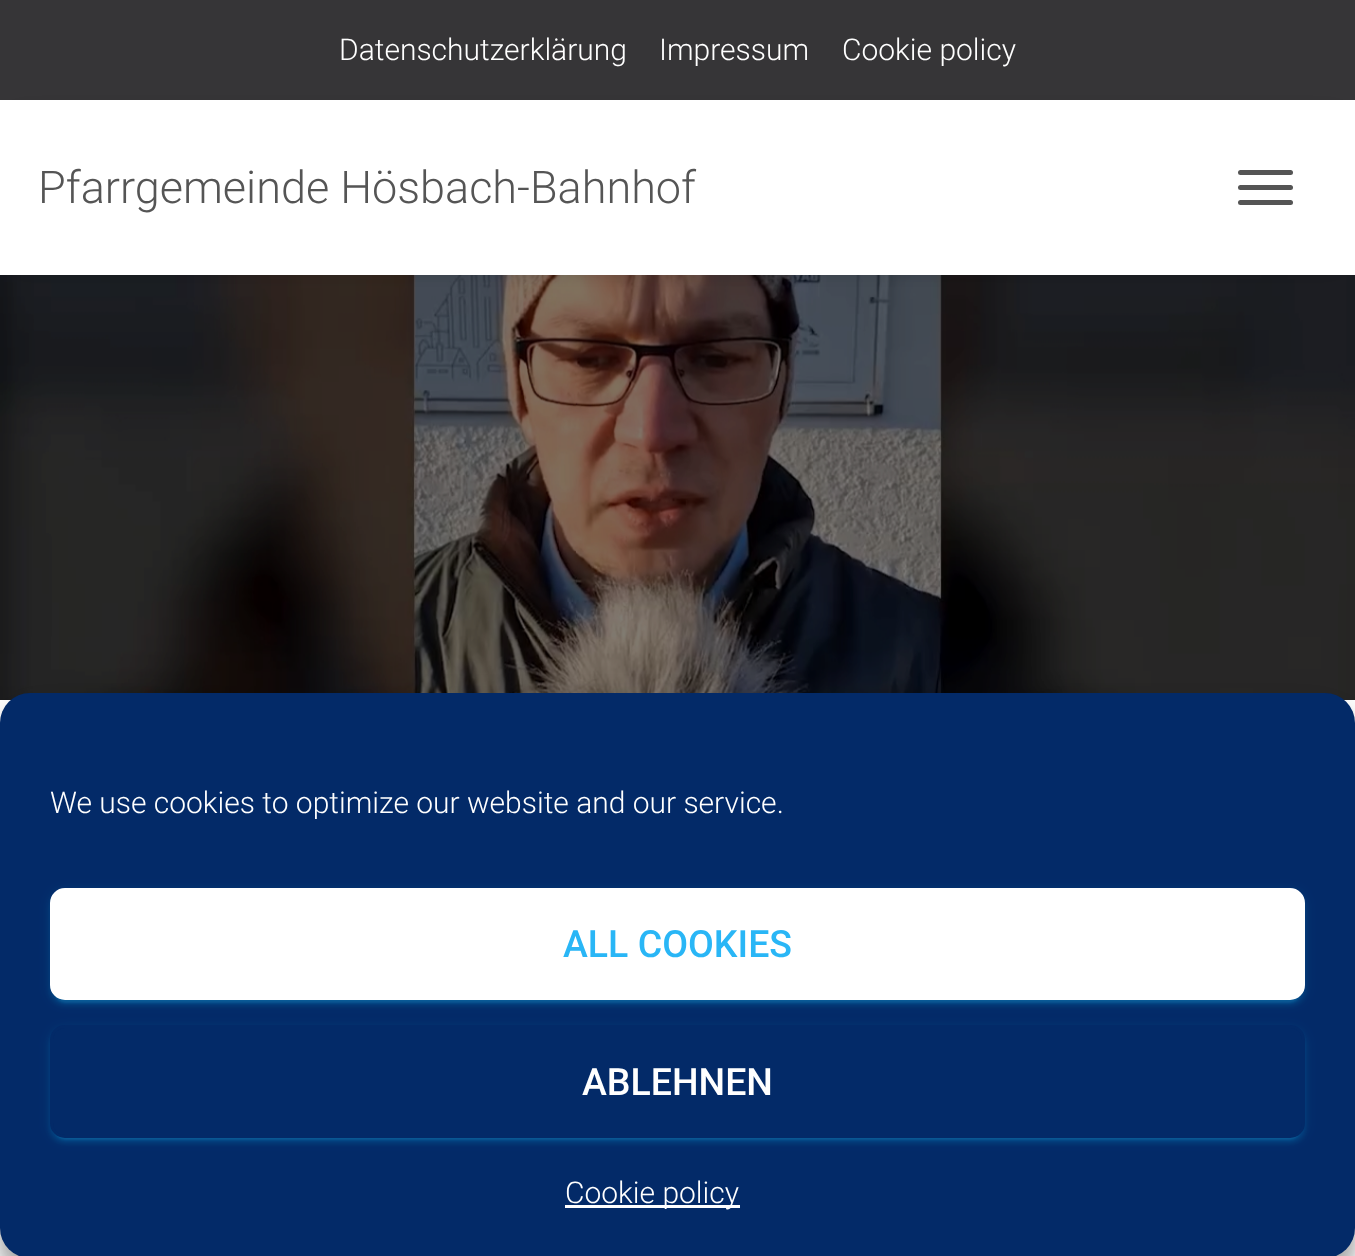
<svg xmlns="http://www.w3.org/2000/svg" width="1355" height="1256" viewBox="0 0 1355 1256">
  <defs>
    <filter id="blur1" x="-50%" y="-200%" width="200%" height="500%"><feGaussianBlur stdDeviation="12.5"/></filter>
    <filter id="blur2" x="-50%" y="-200%" width="200%" height="500%"><feGaussianBlur stdDeviation="7.5"/></filter>
    <filter id="blur3" x="-50%" y="-200%" width="200%" height="500%"><feGaussianBlur stdDeviation="25"/></filter>
    <filter id="blur4" x="-50%" y="-200%" width="200%" height="500%"><feGaussianBlur stdDeviation="6"/></filter>
    <filter id="blur5" x="-50%" y="-200%" width="200%" height="500%"><feGaussianBlur stdDeviation="1"/></filter>
    <filter id="blur6" x="-50%" y="-200%" width="200%" height="500%"><feGaussianBlur stdDeviation="2.5"/></filter>
  </defs>
  <rect width="100%" height="100%" fill="#363537"/>
  <text x="339" y="60" font-family="Roboto" font-size="30" font-weight="300" fill="#ffffff">Datenschutzerklärung</text>
  <text x="659" y="60" font-family="Roboto" font-size="30" font-weight="300" fill="#ffffff">Impressum</text>
  <text x="842" y="60" font-family="Roboto" font-size="30" font-weight="300" fill="#ffffff">Cookie policy</text>
  <image x="0" y="275" width="1355" height="425" href="img1.png"/>
  <rect x="15" y="118" width="1325" height="145" fill="#000000" fill-opacity="0.42" filter="url(#blur1)"/>
  <rect x="0" y="100" width="1355" height="175" fill="#ffffff"/>
  <text x="38" y="203" font-family="Roboto" font-size="45" font-weight="300" fill="#555555">Pfarrgemeinde Hösbach-Bahnhof</text>
  <rect x="1238" y="170" width="55" height="5" rx="2.5" fill="#555555"/>
  <rect x="1238" y="185" width="55" height="5" rx="2.5" fill="#555555"/>
  <rect x="1238" y="200" width="55" height="5" rx="2.5" fill="#555555"/>
  <rect x="0" y="700" width="1355" height="556" fill="#ffffff"/>
  <rect x="0" y="708" width="1355" height="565" rx="30" fill="#000000" fill-opacity="0.23" filter="url(#blur2)"/>
  <rect x="0" y="718" width="1355" height="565" rx="30" fill="#000000" fill-opacity="0.19" filter="url(#blur3)"/>
  <rect x="0" y="693" width="1355" height="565" rx="30" fill="#032a68"/>
  <text x="50" y="813" font-family="Roboto" font-size="30" font-weight="300" fill="#ffffff">We use cookies to optimize our website and our service.</text>
  <rect x="50" y="890" width="1255" height="113" rx="15" fill="#1da9e5" fill-opacity="0.12" filter="url(#blur4)"/>
  <rect x="55" y="900" width="1245" height="103" rx="10" fill="#1da9e5" fill-opacity="0.2" filter="url(#blur5)"/>
  <rect x="50" y="893" width="1255" height="112" rx="15" fill="#1da9e5" fill-opacity="0.14" filter="url(#blur6)"/>
  <rect x="51.5" y="889.5" width="1252" height="109" rx="13.5" fill="#ffffff" stroke="#ffffff" stroke-width="3"/>
  <text x="563" y="957" font-family="Roboto" font-size="37.5" font-weight="500" fill="#29b6f6">ALL COOKIES</text>
  <rect x="50" y="1028" width="1255" height="112" rx="15" fill="#1da9e5" fill-opacity="0.12" filter="url(#blur4)"/>
  <rect x="55" y="1038" width="1245" height="102" rx="10" fill="#1da9e5" fill-opacity="0.2" filter="url(#blur5)"/>
  <rect x="50" y="1030" width="1255" height="113" rx="15" fill="#1da9e5" fill-opacity="0.14" filter="url(#blur6)"/>
  <rect x="51.5" y="1026.5" width="1252" height="110" rx="13.5" fill="#032a68" stroke="#032a68" stroke-width="3"/>
  <text x="582" y="1095" font-family="Roboto" font-size="37.5" font-weight="500" fill="#ffffff">ABLEHNEN</text>
  <rect x="565" y="1205" width="175" height="3" fill="#ffffff"/>
  <text x="565" y="1203" font-family="Roboto" font-size="30" font-weight="300" fill="#ffffff">Cookie policy</text>
</svg>
